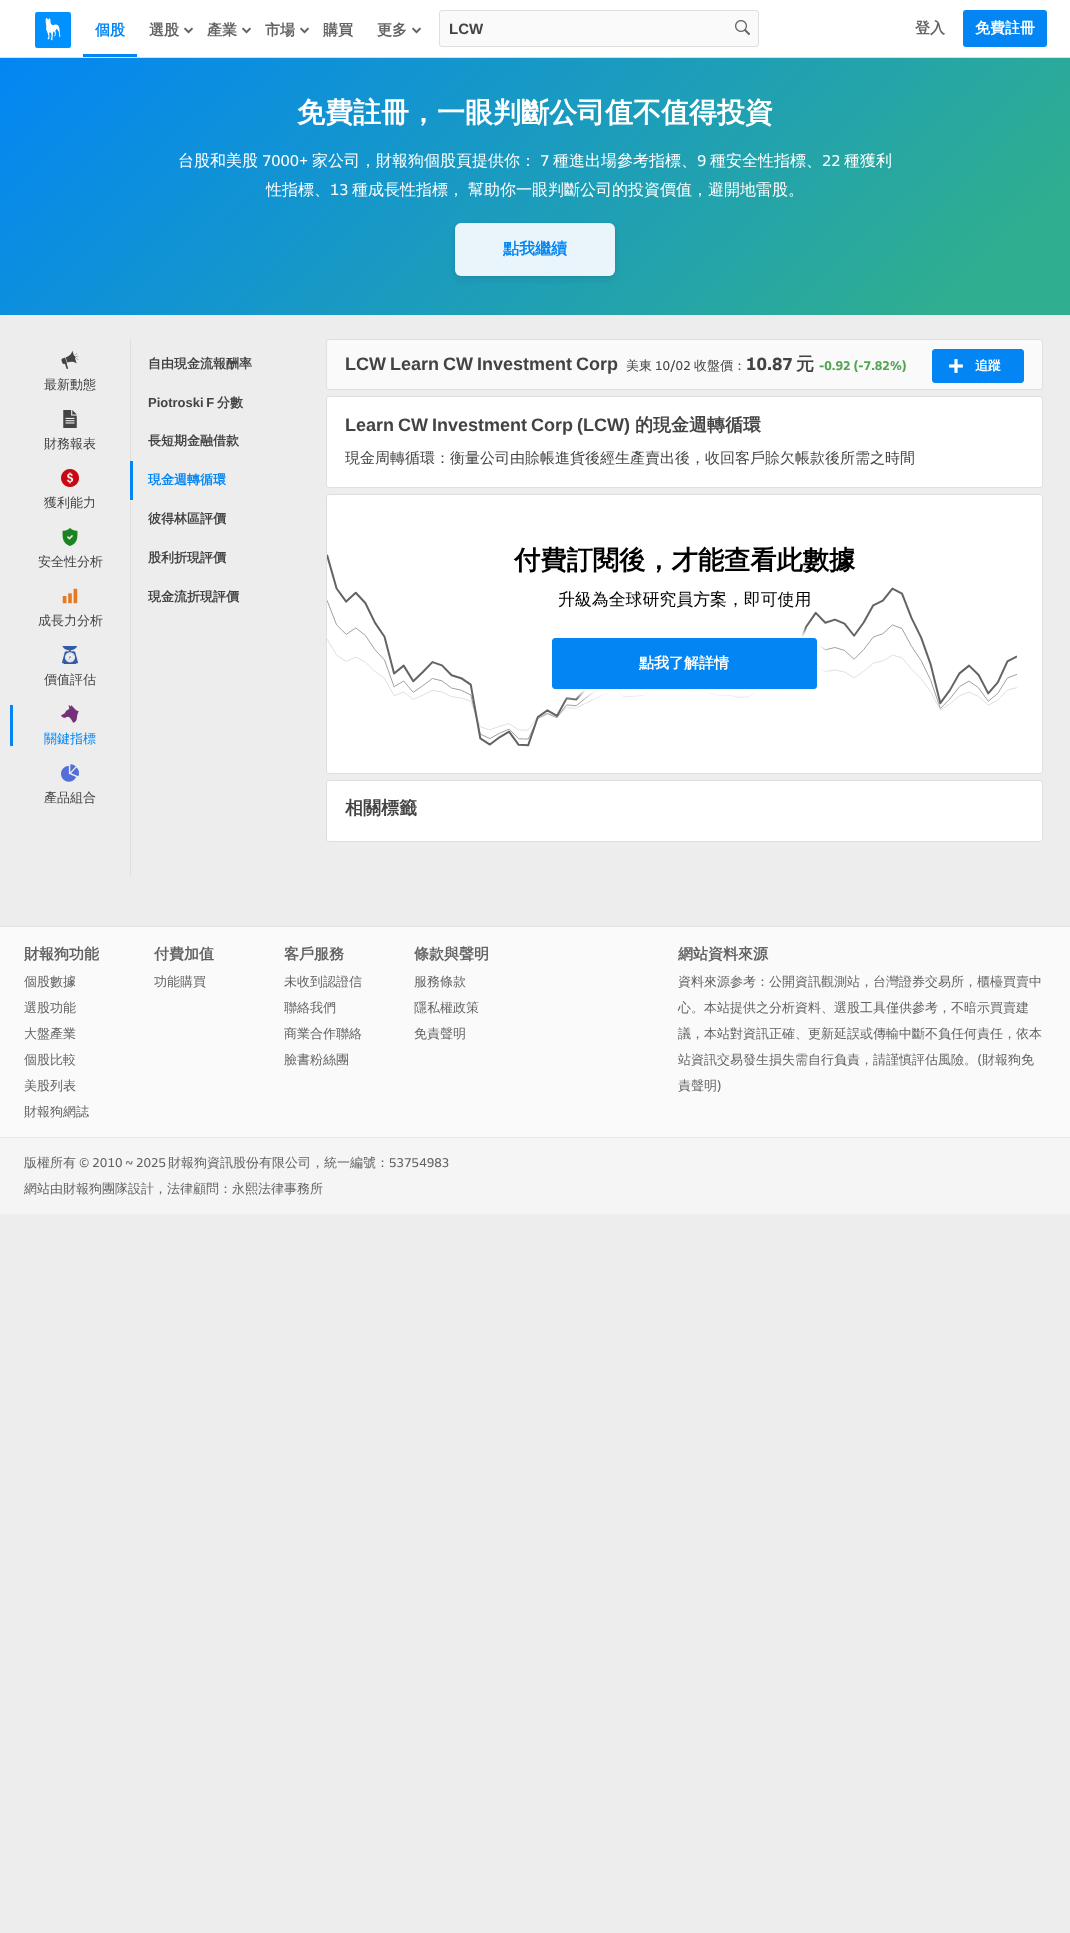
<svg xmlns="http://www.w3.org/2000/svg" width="1070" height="1933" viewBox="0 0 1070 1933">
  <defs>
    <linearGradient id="g1" gradientUnits="userSpaceOnUse" x1="213" y1="-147" x2="857" y2="520"><stop offset="0" stop-color="#0386f4"/><stop offset="0.9" stop-color="#2fae90"/></linearGradient>
    <filter id="blur1" x="-50%" y="-200%" width="200%" height="500%"><feGaussianBlur stdDeviation="1.5"/></filter>
    <filter id="blur2" x="-50%" y="-200%" width="200%" height="500%"><feGaussianBlur stdDeviation="3"/></filter>
  </defs>
  <rect width="100%" height="100%" fill="#ededed"/>
  <rect x="0" y="0" width="1070" height="57" fill="#ffffff"/>
  <rect x="0" y="57" width="1070" height="1" fill="#dfdfdf"/>
  <image x="35" y="12" width="36" height="36" href="img1.png"/>
  <rect x="83" y="54" width="54" height="3" fill="#0386f4"/>
  <text x="95" y="35" font-family="WenQuanYi Zen Hei" font-size="15" font-weight="bold" fill="#0386f4">個股</text>
  <text x="149" y="35" font-family="WenQuanYi Zen Hei" font-size="15" font-weight="bold" fill="#636363">選股</text>
  <image x="184" y="27" width="9" height="7" href="img2.png"/>
  <text x="207" y="35" font-family="WenQuanYi Zen Hei" font-size="15" font-weight="bold" fill="#636363">產業</text>
  <image x="242" y="27" width="9" height="7" href="img2.png"/>
  <text x="265" y="35" font-family="WenQuanYi Zen Hei" font-size="15" font-weight="bold" fill="#636363">市場</text>
  <image x="300" y="27" width="9" height="7" href="img2.png"/>
  <text x="323" y="35" font-family="WenQuanYi Zen Hei" font-size="15" font-weight="bold" fill="#636363">購買</text>
  <text x="377" y="35" font-family="WenQuanYi Zen Hei" font-size="15" font-weight="bold" fill="#636363">更多</text>
  <image x="412" y="27" width="9" height="7" href="img2.png"/>
  <rect x="439.5" y="10.5" width="319" height="36" rx="2.5" fill="#fafafa" stroke="#dfdfdf"/>
  <text x="449" y="34" font-family="Liberation Sans" font-size="15" font-weight="bold" fill="#434343">LCW</text>
  <image x="735" y="20" width="15" height="15" href="img3.png"/>
  <text x="915" y="33" font-family="WenQuanYi Zen Hei" font-size="15" font-weight="bold" fill="#636363">登入</text>
  <rect x="963" y="10" width="84" height="37" rx="3" fill="#0386f4"/>
  <text x="975" y="33" font-family="WenQuanYi Zen Hei" font-size="15" font-weight="bold" fill="#ffffff">免費註冊</text>
  <rect x="0" y="58" width="1070" height="257" fill="url(#g1)"/>
  <text x="297" y="122" font-family="WenQuanYi Zen Hei" font-size="28" font-weight="bold" fill="#ffffff">免費註冊，一眼判斷公司值不值得投資</text>
  <text x="178" y="166" font-family="WenQuanYi Zen Hei" font-size="16" font-weight="500" fill="#ffffff">台股和美股</text>
  <text x="262" y="166" font-family="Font" font-size="16" fill="#ffffff">7000+</text>
  <text x="312" y="166" font-family="WenQuanYi Zen Hei" font-size="16" font-weight="500" fill="#ffffff">家公司，財報狗個股頁提供你：</text>
  <text x="540" y="166" font-family="Font" font-size="16" fill="#ffffff">7</text>
  <text x="553" y="166" font-family="WenQuanYi Zen Hei" font-size="16" font-weight="500" fill="#ffffff">種進出場參考指標、</text>
  <text x="697" y="166" font-family="Font" font-size="16" fill="#ffffff">9</text>
  <text x="710" y="166" font-family="WenQuanYi Zen Hei" font-size="16" font-weight="500" fill="#ffffff">種安全性指標、</text>
  <text x="822" y="166" font-family="Font" font-size="16" fill="#ffffff">22</text>
  <text x="844" y="166" font-family="WenQuanYi Zen Hei" font-size="16" font-weight="500" fill="#ffffff">種獲利</text>
  <text x="266" y="195" font-family="WenQuanYi Zen Hei" font-size="16" font-weight="500" fill="#ffffff">性指標、</text>
  <text x="330" y="195" font-family="Font" font-size="16" fill="#ffffff">13</text>
  <text x="352" y="195" font-family="WenQuanYi Zen Hei" font-size="16" font-weight="500" fill="#ffffff">種成長性指標，</text>
  <text x="468" y="195" font-family="WenQuanYi Zen Hei" font-size="16" font-weight="500" fill="#ffffff">幫助你一眼判斷公司的投資價值，避開地雷股。</text>
  <rect x="455" y="224" width="160" height="53" rx="6" fill="#000000" fill-opacity="0.08" filter="url(#blur1)"/>
  <rect x="455" y="227" width="160" height="53" rx="6" fill="#32325d" fill-opacity="0.11" filter="url(#blur2)"/>
  <rect x="455" y="223" width="160" height="53" rx="6" fill="#eaf5fb"/>
  <text x="503" y="254" font-family="WenQuanYi Zen Hei" font-size="16" font-weight="bold" fill="#0386f4">點我繼續</text>
  <image x="61" y="351" width="18" height="18" href="img4.png"/>
  <text x="44" y="389" font-family="WenQuanYi Zen Hei" font-size="13" font-weight="500" fill="#434343">最新動態</text>
  <image x="63" y="410" width="14" height="18" href="img5.png"/>
  <text x="44" y="448" font-family="WenQuanYi Zen Hei" font-size="13" font-weight="500" fill="#434343">財務報表</text>
  <image x="61" y="469" width="18" height="18" href="img6.png"/>
  <text x="44" y="507" font-family="WenQuanYi Zen Hei" font-size="13" font-weight="500" fill="#434343">獲利能力</text>
  <image x="62" y="528" width="16" height="18" href="img7.png"/>
  <text x="38" y="566" font-family="WenQuanYi Zen Hei" font-size="13" font-weight="500" fill="#434343">安全性分析</text>
  <image x="62" y="588" width="16" height="16" href="img8.png"/>
  <text x="38" y="625" font-family="WenQuanYi Zen Hei" font-size="13" font-weight="500" fill="#434343">成長力分析</text>
  <image x="62" y="646" width="16" height="18" href="img9.png"/>
  <text x="44" y="684" font-family="WenQuanYi Zen Hei" font-size="13" font-weight="500" fill="#434343">價值評估</text>
  <rect x="10" y="705" width="3" height="41" fill="#0386f4"/>
  <image x="61" y="705" width="18" height="18" href="img10.png"/>
  <text x="44" y="743" font-family="WenQuanYi Zen Hei" font-size="13" font-weight="500" fill="#0386f4">關鍵指標</text>
  <image x="61" y="764" width="18" height="18" href="img11.png"/>
  <text x="44" y="802" font-family="WenQuanYi Zen Hei" font-size="13" font-weight="500" fill="#434343">產品組合</text>
  <rect x="130" y="339" width="1" height="537" fill="#dfdfdf"/>
  <text x="148" y="368" font-family="WenQuanYi Zen Hei" font-size="13" font-weight="bold" fill="#434343">自由現金流報酬率</text>
  <text x="148" y="407" word-spacing="-1" font-family="Liberation Sans" font-size="13" font-weight="bold" fill="#434343">Piotroski F</text>
  <text x="217" y="407" font-family="WenQuanYi Zen Hei" font-size="13" font-weight="bold" fill="#434343">分數</text>
  <text x="148" y="445" font-family="WenQuanYi Zen Hei" font-size="13" font-weight="bold" fill="#434343">長短期金融借款</text>
  <rect x="130" y="461" width="3" height="39" fill="#0386f4"/>
  <text x="148" y="484" font-family="WenQuanYi Zen Hei" font-size="13" font-weight="bold" fill="#0386f4">現金週轉循環</text>
  <text x="148" y="523" font-family="WenQuanYi Zen Hei" font-size="13" font-weight="bold" fill="#434343">彼得林區評價</text>
  <text x="148" y="562" font-family="WenQuanYi Zen Hei" font-size="13" font-weight="bold" fill="#434343">股利折現評價</text>
  <text x="148" y="601" font-family="WenQuanYi Zen Hei" font-size="13" font-weight="bold" fill="#434343">現金流折現評價</text>
  <rect x="326.5" y="339.5" width="716" height="50" rx="2.5" fill="#fafafa" stroke="#dfdfdf"/>
  <text x="345" y="370" word-spacing="-1" font-family="Liberation Sans" font-size="18" font-weight="bold" fill="#434343">LCW Learn CW Investment Corp</text>
  <text x="626" y="370" font-family="WenQuanYi Zen Hei" font-size="13" font-weight="500" fill="#434343">美東</text>
  <text x="655" y="370" font-family="Font" font-size="13" fill="#434343">10/02</text>
  <text x="694" y="370" font-family="WenQuanYi Zen Hei" font-size="13" font-weight="500" fill="#434343">收盤價：</text>
  <text x="746" y="370" font-family="Font" font-size="18" font-weight="bold" fill="#434343">10.87</text>
  <text x="796" y="370" font-family="WenQuanYi Zen Hei" font-size="18" font-weight="bold" fill="#434343">元</text>
  <text x="819" y="370" font-family="Font" font-size="13" font-weight="bold" fill="#51a551">-0.92 (-7.82%)</text>
  <rect x="932.5" y="349.5" width="91" height="33" rx="2.5" fill="#0386f4" stroke="#0386f4"/>
  <image x="949" y="359" width="14" height="14" href="img12.png"/>
  <text x="975" y="370" font-family="WenQuanYi Zen Hei" font-size="13" font-weight="bold" fill="#ffffff">追蹤</text>
  <rect x="326.5" y="396.5" width="716" height="91" rx="2.5" fill="#ffffff" stroke="#dfdfdf"/>
  <text x="345" y="431" word-spacing="-1" font-family="Liberation Sans" font-size="18" font-weight="bold" fill="#434343">Learn CW Investment Corp (LCW)</text>
  <text x="635" y="431" font-family="WenQuanYi Zen Hei" font-size="18" font-weight="bold" fill="#434343">的現金週轉循環</text>
  <text x="345" y="463" font-family="WenQuanYi Zen Hei" font-size="15" font-weight="500" fill="#434343">現金周轉循環：衡量公司由賒帳進貨後經生產賣出後，收回客戶賒欠帳款後所需之時間</text>
  <rect x="326.5" y="494.5" width="716" height="279" rx="2.5" fill="#ffffff" stroke="#dfdfdf"/>
  <image x="327" y="554" width="690" height="193" href="img13.png"/>
  <text x="514" y="569" font-family="WenQuanYi Zen Hei" font-size="26.25" font-weight="bold" fill="#000000">付費訂閱後，才能查看此數據</text>
  <text x="558" y="605" font-family="WenQuanYi Zen Hei" font-size="16.9" font-weight="500" fill="#000000">升級為全球研究員方案，即可使用</text>
  <rect x="546" y="632" width="277" height="63" rx="9" fill="#ffffff" filter="url(#blur2)"/>
  <rect x="552.5" y="638.5" width="264" height="50" rx="2.5" fill="#0386f4" stroke="#0386f4"/>
  <text x="639" y="668" font-family="WenQuanYi Zen Hei" font-size="15" font-weight="bold" fill="#ffffff">點我了解詳情</text>
  <rect x="326.5" y="780.5" width="716" height="61" rx="2.5" fill="#ffffff" stroke="#dfdfdf"/>
  <text x="345" y="814" font-family="WenQuanYi Zen Hei" font-size="18" font-weight="bold" fill="#434343">相關標籤</text>
  <rect x="0" y="927" width="1070" height="210" fill="#fafafa"/>
  <rect x="0" y="926" width="1070" height="1" fill="#e3e3e3"/>
  <text x="24" y="959" font-family="WenQuanYi Zen Hei" font-size="15" font-weight="bold" fill="#636363">財報狗功能</text>
  <text x="24" y="986" font-family="WenQuanYi Zen Hei" font-size="13" font-weight="500" fill="#636363">個股數據</text>
  <text x="24" y="1012" font-family="WenQuanYi Zen Hei" font-size="13" font-weight="500" fill="#636363">選股功能</text>
  <text x="24" y="1038" font-family="WenQuanYi Zen Hei" font-size="13" font-weight="500" fill="#636363">大盤產業</text>
  <text x="24" y="1064" font-family="WenQuanYi Zen Hei" font-size="13" font-weight="500" fill="#636363">個股比較</text>
  <text x="24" y="1090" font-family="WenQuanYi Zen Hei" font-size="13" font-weight="500" fill="#636363">美股列表</text>
  <text x="24" y="1116" font-family="WenQuanYi Zen Hei" font-size="13" font-weight="500" fill="#636363">財報狗網誌</text>
  <text x="154" y="959" font-family="WenQuanYi Zen Hei" font-size="15" font-weight="bold" fill="#636363">付費加值</text>
  <text x="154" y="986" font-family="WenQuanYi Zen Hei" font-size="13" font-weight="500" fill="#636363">功能購買</text>
  <text x="284" y="959" font-family="WenQuanYi Zen Hei" font-size="15" font-weight="bold" fill="#636363">客戶服務</text>
  <text x="284" y="986" font-family="WenQuanYi Zen Hei" font-size="13" font-weight="500" fill="#636363">未收到認證信</text>
  <text x="284" y="1012" font-family="WenQuanYi Zen Hei" font-size="13" font-weight="500" fill="#636363">聯絡我們</text>
  <text x="284" y="1038" font-family="WenQuanYi Zen Hei" font-size="13" font-weight="500" fill="#636363">商業合作聯絡</text>
  <text x="284" y="1064" font-family="WenQuanYi Zen Hei" font-size="13" font-weight="500" fill="#636363">臉書粉絲團</text>
  <text x="414" y="959" font-family="WenQuanYi Zen Hei" font-size="15" font-weight="bold" fill="#636363">條款與聲明</text>
  <text x="414" y="986" font-family="WenQuanYi Zen Hei" font-size="13" font-weight="500" fill="#636363">服務條款</text>
  <text x="414" y="1012" font-family="WenQuanYi Zen Hei" font-size="13" font-weight="500" fill="#636363">隱私權政策</text>
  <text x="414" y="1038" font-family="WenQuanYi Zen Hei" font-size="13" font-weight="500" fill="#636363">免責聲明</text>
  <text x="678" y="959" font-family="WenQuanYi Zen Hei" font-size="15" font-weight="bold" fill="#636363">網站資料來源</text>
  <text x="678" y="986" font-family="WenQuanYi Zen Hei" font-size="13" font-weight="500" fill="#636363">資料來源参考：公開資訊觀測站，台灣證券交易所，櫃檯買賣中</text>
  <text x="678" y="1012" font-family="WenQuanYi Zen Hei" font-size="13" font-weight="500" fill="#636363">心。本站提供之分析資料、選股工具僅供參考，不暗示買賣建</text>
  <text x="678" y="1038" font-family="WenQuanYi Zen Hei" font-size="13" font-weight="500" fill="#636363">議，本站對資訊正確、更新延誤或傳輸中斷不負任何責任，依本</text>
  <text x="678" y="1064" font-family="WenQuanYi Zen Hei" font-size="13" font-weight="500" fill="#636363">站資訊交易發生損失需自行負責，請謹慎評估風險。</text>
  <text x="977" y="1064" font-family="Font" font-size="13" fill="#636363">(</text>
  <text x="982" y="1064" font-family="WenQuanYi Zen Hei" font-size="13" font-weight="500" fill="#636363">財報狗免</text>
  <text x="678" y="1090" font-family="WenQuanYi Zen Hei" font-size="13" font-weight="500" fill="#636363">責聲明</text>
  <text x="717" y="1090" font-family="Font" font-size="13" fill="#636363">)</text>
  <rect x="0" y="1138" width="1070" height="76" fill="#f5f5f5"/>
  <rect x="0" y="1137" width="1070" height="1" fill="#e9e9e9"/>
  <text x="24" y="1167" font-family="WenQuanYi Zen Hei" font-size="13" font-weight="500" fill="#636363">版權所有</text>
  <text x="79" y="1167" font-family="Font" font-size="13" fill="#636363">© 2010 ~ 2025</text>
  <text x="168" y="1167" font-family="WenQuanYi Zen Hei" font-size="13" font-weight="500" fill="#636363">財報狗資訊股份有限公司，統一編號：</text>
  <text x="389" y="1167" font-family="Font" font-size="13" fill="#636363">53754983</text>
  <text x="24" y="1193" font-family="WenQuanYi Zen Hei" font-size="13" font-weight="500" fill="#636363">網站由財報狗團隊設計，法律顧問：永熙法律事務所</text>
</svg>
